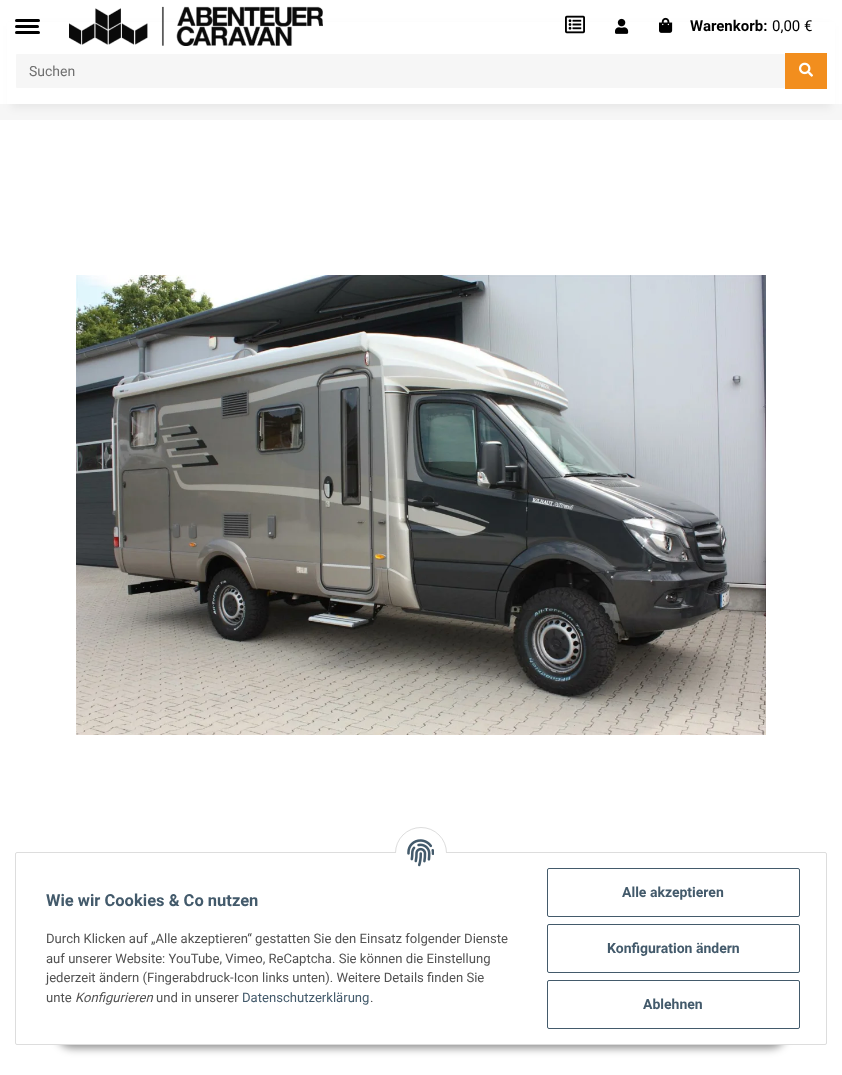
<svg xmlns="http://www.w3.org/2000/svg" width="842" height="1075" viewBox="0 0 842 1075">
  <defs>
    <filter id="blur1" x="-50%" y="-200%" width="200%" height="500%"><feGaussianBlur stdDeviation="4"/></filter>
    <filter id="blur2" x="-50%" y="-200%" width="200%" height="500%"><feGaussianBlur stdDeviation="4.5"/></filter>
  </defs>
  <rect width="100%" height="100%" fill="#ffffff"/>
  <rect x="0" y="104" width="842" height="16" fill="#f6f6f6"/>
  <rect x="11" y="26" width="820" height="82" fill="#000000" fill-opacity="0.06" filter="url(#blur1)"/>
  <rect x="7" y="22" width="828" height="82" fill="#ffffff"/>
  <rect x="15" y="25" width="24" height="3" rx="1.5" fill="#000000"/>
  <rect x="15" y="19" width="25" height="3" rx="1.5" fill="#000000"/>
  <rect x="15" y="31" width="25" height="3" rx="1.5" fill="#000000"/>
  <image x="69" y="6" width="254" height="40" href="img1.png"/>
  <image x="565" y="15" width="20" height="19" href="img2.png"/>
  <image x="615" y="18" width="14" height="16" href="img3.png"/>
  <image x="659" y="17" width="14" height="16" href="img4.png"/>
  <text x="690" y="31" font-family="Roboto" font-size="15" font-weight="bold" fill="#000000">Warenkorb:</text>
  <text x="772" y="31" font-family="Roboto" font-size="15" fill="#000000">0,00 €</text>
  <rect x="16" y="54" width="769" height="34" rx="1" fill="#f6f6f6"/>
  <text x="29" y="76" font-family="Roboto" font-size="14" fill="#707070">Suchen</text>
  <rect x="785" y="53" width="42" height="36" fill="#f28e1e"/>
  <image x="799" y="62" width="14" height="15" href="img5.png"/>
  <image x="76" y="275" width="690" height="460" href="img6.png"/>
  <rect x="57" y="1018" width="729" height="30" rx="15" fill="#000000" fill-opacity="0.45" filter="url(#blur2)"/>
  <rect x="15.5" y="852.5" width="811" height="192" rx="1.5" fill="#ffffff" stroke="#dddddd"/>
  <circle cx="421" cy="853" r="25.5" fill="#ffffff" stroke="#dddddd"/>
  <rect x="395" y="853" width="52" height="26" fill="#ffffff"/>
  <image x="407" y="839" width="27" height="28" href="img7.png"/>
  <text x="46" y="906" font-family="Roboto" font-size="16.5" font-weight="bold" fill="#435a6b">Wie wir Cookies &amp; Co nutzen</text>
  <text x="46" y="943" font-family="Roboto" font-size="13.1" fill="#525252">Durch Klicken auf „Alle akzeptieren“ gestatten Sie den Einsatz folgender Dienste</text>
  <text x="46" y="963" font-family="Roboto" font-size="13.1" fill="#525252">auf unserer Website: YouTube, Vimeo, ReCaptcha. Sie können die Einstellung</text>
  <text x="46" y="982" font-family="Roboto" font-size="13.1" fill="#525252">jederzeit ändern (Fingerabdruck-Icon links unten). Weitere Details finden Sie</text>
  <text x="46" y="1002" font-family="Roboto" font-size="13.1" fill="#525252">unte</text>
  <text x="75" y="1002" font-family="Roboto" font-size="13.1" font-style="italic" fill="#525252">Konfigurieren</text>
  <text x="156" y="1002" font-family="Roboto" font-size="13.1" fill="#525252">und in unserer</text>
  <text x="242" y="1002" font-family="Roboto" font-size="13.1" fill="#435a6b">Datenschutzerklärung</text>
  <text x="370" y="1002" font-family="Roboto" font-size="13.1" fill="#525252">.</text>
  <rect x="547.5" y="868.5" width="252" height="48" rx="1.5" fill="none" stroke="#435a6b"/>
  <text x="622" y="897" font-family="Roboto" font-size="14" font-weight="bold" fill="#435a6b">Alle akzeptieren</text>
  <rect x="547.5" y="924.5" width="252" height="48" rx="1.5" fill="none" stroke="#435a6b"/>
  <text x="607" y="953" font-family="Roboto" font-size="14" font-weight="bold" fill="#435a6b">Konfiguration ändern</text>
  <rect x="547.5" y="980.5" width="252" height="48" rx="1.5" fill="none" stroke="#435a6b"/>
  <text x="643" y="1009" font-family="Roboto" font-size="14" font-weight="bold" fill="#435a6b">Ablehnen</text>
</svg>
